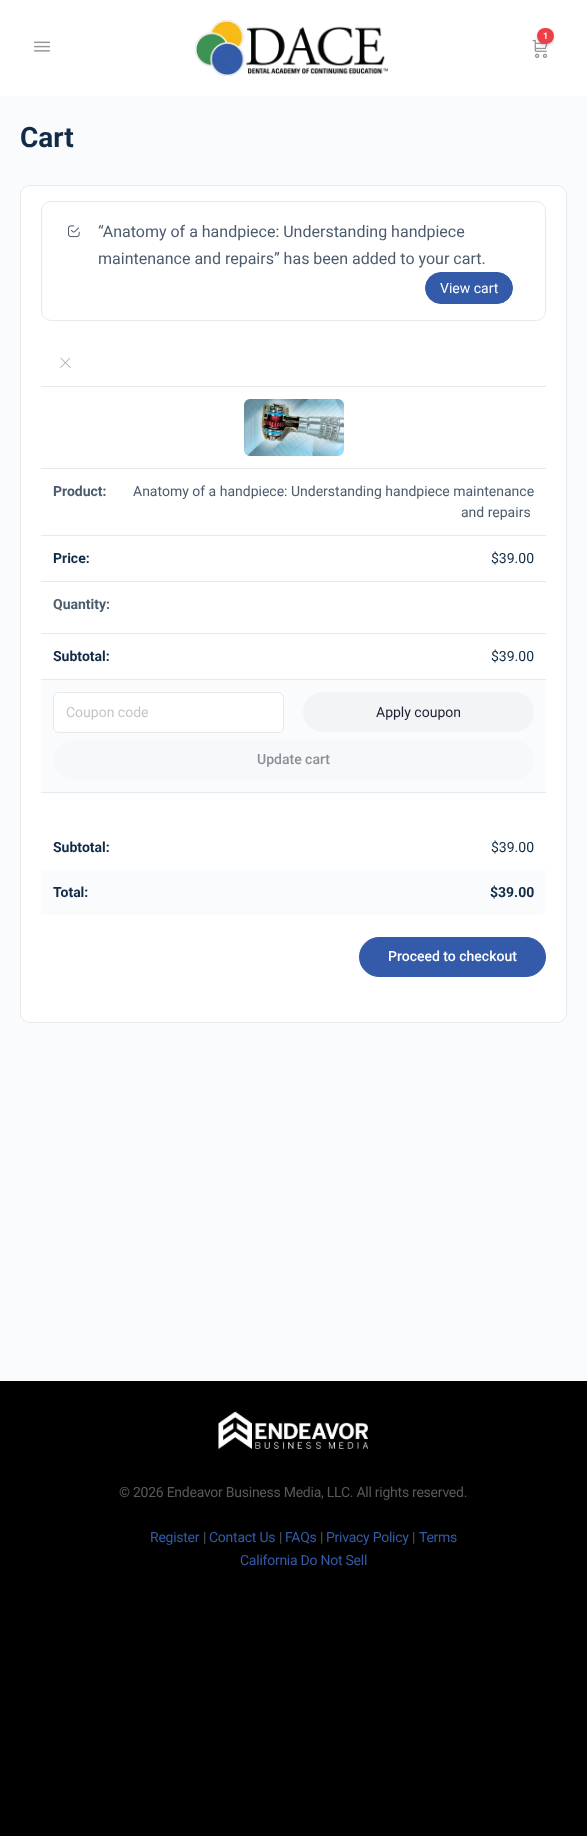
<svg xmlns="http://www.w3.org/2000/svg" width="587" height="1836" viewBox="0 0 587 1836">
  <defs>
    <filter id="blur1" x="-50%" y="-200%" width="200%" height="500%"><feGaussianBlur stdDeviation="1"/></filter>
  </defs>
  <rect width="100%" height="100%" fill="#fafbfd"/>
  <rect x="0" y="0" width="587" height="96" fill="#ffffff"/>
  <image x="195" y="20" width="193" height="56" href="img1.png"/>
  <image x="532" y="39" width="16" height="19" href="img2.png"/>
  <rect x="537" y="30" width="17" height="16" rx="8" fill="#000000" fill-opacity="0.15" filter="url(#blur1)"/>
  <rect x="537" y="28" width="17" height="16" rx="8" fill="#ef3e46"/>
  <text x="543" y="39" font-family="Roboto" font-size="9" font-weight="600" letter-spacing="-1" fill="#ffffff">1</text>
  <image x="34" y="41" width="16" height="11" href="img3.png"/>
  <text x="20" y="147" font-family="Roboto" font-size="28" font-weight="bold" fill="#122b46">Cart</text>
  <rect x="20.5" y="185.5" width="546" height="837" rx="9.5" fill="#ffffff" stroke="#e7e9ec"/>
  <rect x="41.5" y="201.5" width="504" height="119" rx="9.5" fill="none" stroke="#e7e9ec"/>
  <image x="68" y="225" width="12" height="13" href="img4.png"/>
  <text x="98" y="237" font-family="Roboto" font-size="16" fill="#4d5c6d">“Anatomy of a handpiece: Understanding handpiece</text>
  <text x="98" y="264" font-family="Roboto" font-size="16" fill="#4d5c6d">maintenance and repairs” has been added to your cart.</text>
  <rect x="425.5" y="272.5" width="87" height="31" rx="15.5" fill="#345ba9" stroke="#345ba9"/>
  <text x="440" y="293" font-family="Roboto" font-size="14" fill="#ffffff">View cart</text>
  <rect x="41" y="386" width="505" height="1" fill="#e7e9ec"/>
  <text x="59" y="368" font-family="Roboto" font-size="25" font-weight="100" fill="#a3a5a9">×</text>
  <rect x="41" y="468" width="505" height="1" fill="#e7e9ec"/>
  <image x="244" y="399" width="100" height="57" href="img5.png"/>
  <rect x="41" y="535" width="505" height="1" fill="#e7e9ec"/>
  <text x="53" y="496" font-family="Roboto" font-size="14" font-weight="bold" fill="#4d5c6d">Product:</text>
  <text x="133" y="496" font-family="Roboto" font-size="14" fill="#4d5c6d">Anatomy of a handpiece: Understanding handpiece maintenance</text>
  <text x="461" y="517" font-family="Roboto" font-size="14" fill="#4d5c6d">and repairs</text>
  <rect x="41" y="581" width="505" height="1" fill="#e7e9ec"/>
  <text x="53" y="563" font-family="Roboto" font-size="14" font-weight="bold" fill="#122b46">Price:</text>
  <text x="491" y="563" font-family="Roboto" font-size="14" fill="#122b46">$39.00</text>
  <rect x="41" y="633" width="505" height="1" fill="#e7e9ec"/>
  <text x="53" y="609" font-family="Roboto" font-size="14" font-weight="bold" fill="#4d5c6d">Quantity:</text>
  <rect x="41" y="679" width="505" height="1" fill="#e7e9ec"/>
  <text x="53" y="661" font-family="Roboto" font-size="14" font-weight="bold" fill="#122b46">Subtotal:</text>
  <text x="491" y="661" font-family="Roboto" font-size="14" fill="#122b46">$39.00</text>
  <rect x="41" y="680" width="505" height="112" fill="#fafbfd"/>
  <rect x="41" y="792" width="505" height="1" fill="#e7e9ec"/>
  <rect x="53.5" y="692.5" width="230" height="40" rx="5.5" fill="#ffffff" stroke="#e7e9ec"/>
  <text x="66" y="717" font-family="Roboto" font-size="14" fill="#c3c6c9">Coupon code</text>
  <rect x="303" y="692" width="231" height="40" rx="20" fill="#f2f4f5"/>
  <text x="376" y="717" font-family="Roboto" font-size="14" fill="#1e2132">Apply coupon</text>
  <rect x="53" y="740" width="481" height="40" rx="20" fill="#f6f8f9"/>
  <text x="257" y="764" font-family="Roboto" font-size="14" font-weight="500" fill="#8c8e98">Update cart</text>
  <text x="53" y="852" font-family="Roboto" font-size="14" font-weight="bold" fill="#122b46">Subtotal:</text>
  <text x="491" y="852" font-family="Roboto" font-size="14" fill="#122b46">$39.00</text>
  <path d="M41 870H546V909C546 912.5 543.5 915 540 915H41Z" fill="#fafbfd"/>
  <text x="53" y="897" font-family="Roboto" font-size="14" font-weight="bold" fill="#122b46">Total:</text>
  <text x="490" y="897" font-family="Roboto" font-size="14" font-weight="bold" fill="#122b46">$39.00</text>
  <rect x="359.5" y="937.5" width="186" height="39" rx="19.5" fill="#345ba9" stroke="#345ba9"/>
  <text x="388" y="961" font-family="Roboto" font-size="14" font-weight="500" fill="#ffffff">Proceed to checkout</text>
  <rect x="0" y="1381" width="587" height="455" fill="#000000"/>
  <image x="218" y="1411" width="150" height="38" href="img6.png"/>
  <text x="119" y="1497" font-family="Roboto" font-size="14" letter-spacing="-0.25" fill="#5a5a5a">© 2026 Endeavor Business Media, LLC. All rights reserved.</text>
  <text x="150" y="1542" font-family="Roboto" font-size="14" letter-spacing="-0.25" fill="#345ba9">Register</text>
  <text x="203" y="1542" font-family="Roboto" font-size="14" letter-spacing="-0.25" fill="#5a5a5a">|</text>
  <text x="209" y="1542" font-family="Roboto" font-size="14" letter-spacing="-0.25" fill="#345ba9">Contact Us</text>
  <text x="279" y="1542" font-family="Roboto" font-size="14" letter-spacing="-0.25" fill="#5a5a5a">|</text>
  <text x="285" y="1542" font-family="Roboto" font-size="14" letter-spacing="-0.25" fill="#345ba9">FAQs</text>
  <text x="320" y="1542" font-family="Roboto" font-size="14" letter-spacing="-0.25" fill="#5a5a5a">|</text>
  <text x="326" y="1542" font-family="Roboto" font-size="14" letter-spacing="-0.25" fill="#345ba9">Privacy Policy</text>
  <text x="412" y="1542" font-family="Roboto" font-size="14" letter-spacing="-0.25" fill="#5a5a5a">|</text>
  <text x="419" y="1542" font-family="Roboto" font-size="14" letter-spacing="-0.25" fill="#345ba9">Terms</text>
  <text x="240" y="1565" font-family="Roboto" font-size="14" letter-spacing="-0.25" fill="#345ba9">California Do Not Sell</text>
</svg>
